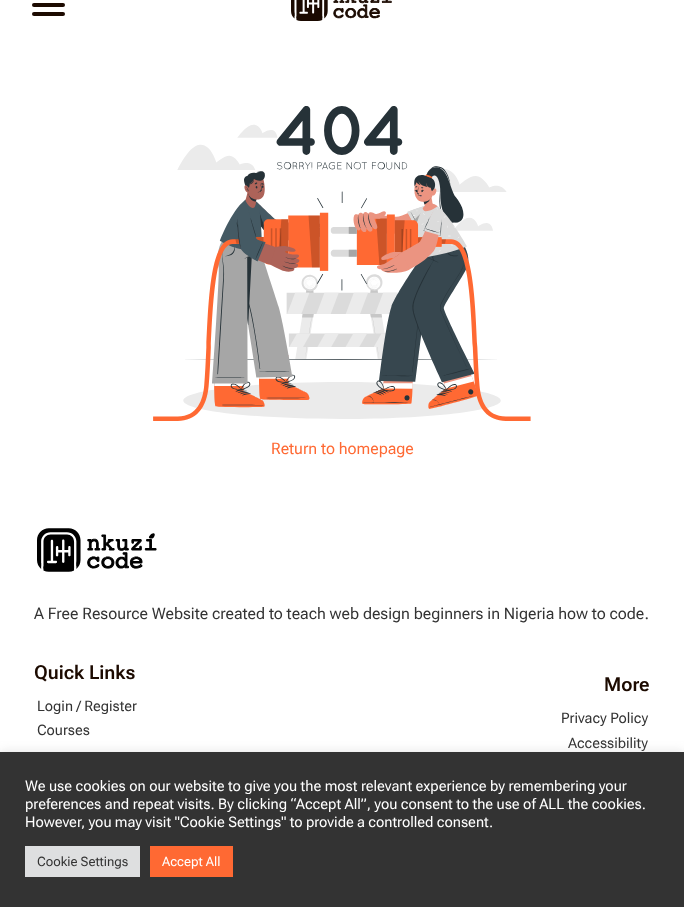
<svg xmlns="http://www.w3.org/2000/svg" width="684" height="907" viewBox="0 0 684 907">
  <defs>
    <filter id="blur1" x="-50%" y="-200%" width="200%" height="500%"><feGaussianBlur stdDeviation="5"/></filter>
  </defs>
  <rect width="100%" height="100%" fill="#ffffff"/>
  <rect x="32" y="3" width="33" height="4" rx="2" fill="#1c0a00"/>
  <rect x="32" y="12" width="33" height="4" rx="2" fill="#1c0a00"/>
  <image x="291" y="0" width="101" height="21" href="img1.png"/>
  <image x="153" y="106" width="378" height="315" href="img2.png"/>
  <text x="271" y="454" font-family="Roboto Flex" font-size="16" fill="#ff6933">Return to homepage</text>
  <image x="37" y="528" width="120" height="44" href="img3.png"/>
  <text x="34" y="619" font-family="Roboto Flex" font-size="16" fill="#333333">A Free Resource Website created to teach web design beginners in Nigeria how to code.</text>
  <text x="34" y="679" font-family="Roboto Flex" font-size="19.25" font-weight="600" fill="#1c0a00">Quick Links</text>
  <text x="37" y="711" font-family="'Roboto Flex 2'" font-size="14.5" fill="#333333">Login / Register</text>
  <text x="37" y="735" font-family="'Roboto Flex 2'" font-size="14.5" fill="#333333">Courses</text>
  <text x="604" y="691" font-family="Roboto Flex" font-size="19.25" font-weight="600" fill="#1c0a00">More</text>
  <text x="561" y="723" font-family="'Roboto Flex 2'" font-size="14.5" fill="#333333">Privacy Policy</text>
  <text x="568" y="748" font-family="'Roboto Flex 2'" font-size="14.5" fill="#333333">Accessibility</text>
  <rect x="0" y="751" width="684" height="155" fill="#acabab" fill-opacity="0.3" filter="url(#blur1)"/>
  <rect x="0" y="752" width="684" height="155" fill="#333333"/>
  <text x="25" y="791" word-spacing="-0.1" font-family="'Roboto Flex 2'" font-size="14.65" fill="#ffffff">We use cookies on our website to give you the most relevant experience by remembering your</text>
  <text x="25" y="809" word-spacing="-0.1" font-family="'Roboto Flex 2'" font-size="14.65" fill="#ffffff">preferences and repeat visits. By clicking “Accept All”, you consent to the use of ALL the cookies.</text>
  <text x="25" y="827" word-spacing="-0.25" font-family="'Roboto Flex 2'" font-size="14.65" fill="#ffffff">However, you may visit "Cookie Settings" to provide a controlled consent.</text>
  <rect x="25" y="846" width="115" height="31" fill="#dedfe0"/>
  <text x="37" y="866" font-family="'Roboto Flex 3'" font-size="13" fill="#333333">Cookie Settings</text>
  <rect x="150" y="846" width="83" height="31" fill="#ff6933"/>
  <text x="162" y="866" font-family="'Roboto Flex 3'" font-size="13" fill="#ffffff">Accept All</text>
</svg>
